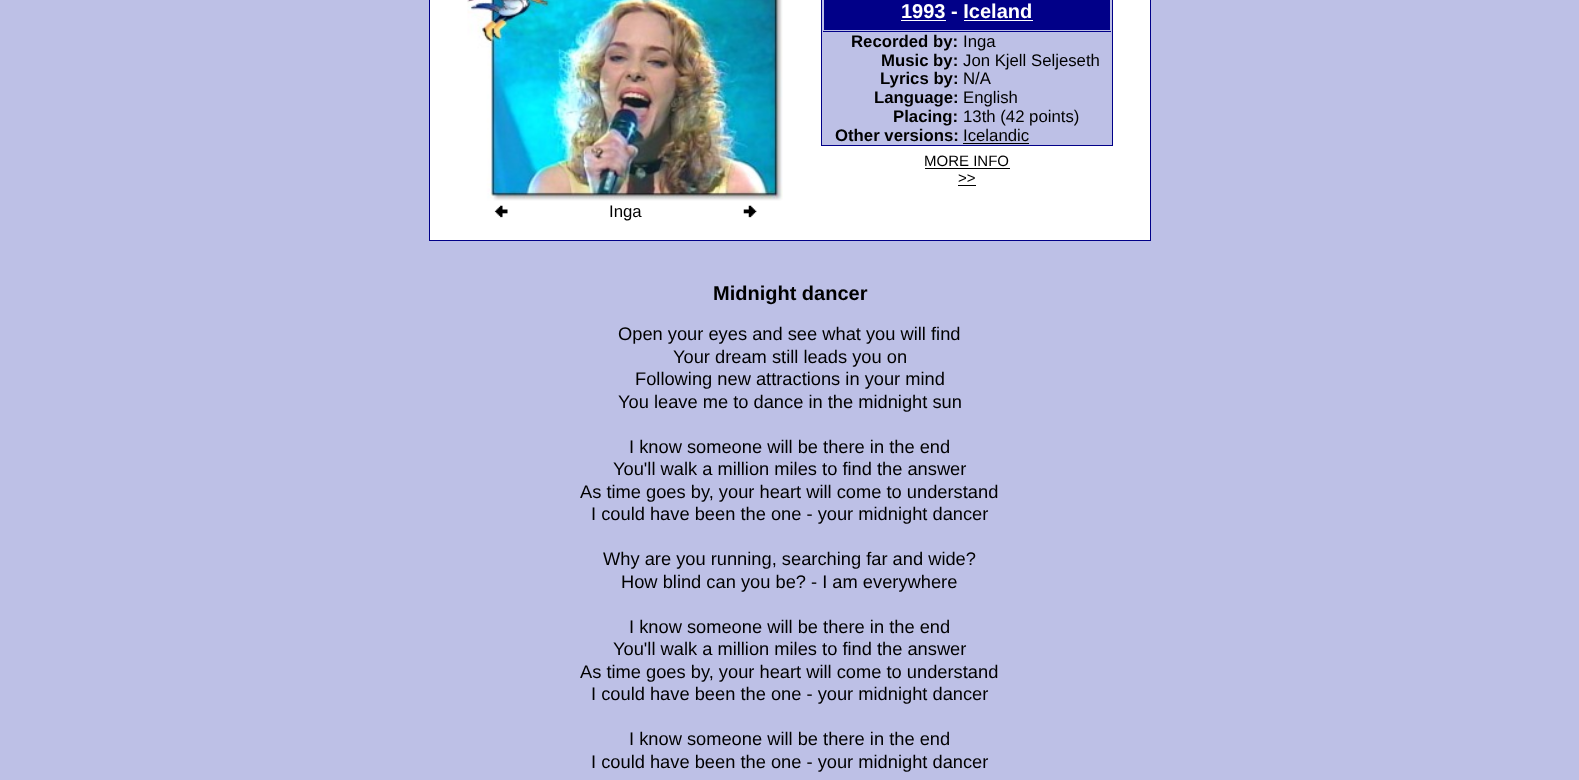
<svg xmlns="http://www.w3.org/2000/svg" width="1579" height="780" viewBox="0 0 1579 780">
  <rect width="100%" height="100%" fill="#bdc0e6"/>
  <rect x="429.5" y="-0.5" width="721" height="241" fill="#ffffff" stroke="#010088"/>
  <rect x="821.5" y="-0.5" width="291" height="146" fill="#bdc0e6" stroke="#010088"/>
  <rect x="823" y="31" width="288" height="1" fill="#010088"/>
  <rect x="824" y="0" width="286" height="30" fill="#010088"/>
  <text x="901" y="18" font-family="Liberation Sans" font-size="20" font-weight="bold" fill="#ffffff">1993 - Iceland</text>
  <rect x="901" y="20" width="45" height="1" fill="#ffffff"/>
  <rect x="964" y="20" width="69" height="1" fill="#ffffff"/>
  <text x="851" y="47" font-family="Liberation Sans" font-size="16.75" font-weight="bold" fill="#000000">Recorded by:</text>
  <text x="963" y="47" font-family="Liberation Sans" font-size="16.75" fill="#000000">Inga</text>
  <text x="881" y="66" font-family="Liberation Sans" font-size="16.75" font-weight="bold" fill="#000000">Music by:</text>
  <text x="963" y="66" font-family="Liberation Sans" font-size="16.75" fill="#000000">Jon Kjell Seljeseth</text>
  <text x="880" y="84" font-family="Liberation Sans" font-size="16.75" font-weight="bold" fill="#000000">Lyrics by:</text>
  <text x="963" y="84" font-family="Liberation Sans" font-size="16.75" fill="#000000">N/A</text>
  <text x="874" y="103" font-family="Liberation Sans" font-size="16.75" font-weight="bold" fill="#000000">Language:</text>
  <text x="963" y="103" font-family="Liberation Sans" font-size="16.75" fill="#000000">English</text>
  <text x="893" y="122" font-family="Liberation Sans" font-size="16.75" font-weight="bold" fill="#000000">Placing:</text>
  <text x="963" y="122" font-family="Liberation Sans" font-size="16.75" fill="#000000">13th (42 points)</text>
  <text x="835" y="141" font-family="Liberation Sans" font-size="16.75" font-weight="bold" fill="#000000">Other versions:</text>
  <text x="963" y="141" font-family="Liberation Sans" font-size="16.75" fill="#000000">Icelandic</text>
  <rect x="963" y="143" width="66" height="1" fill="#000000"/>
  <text x="924" y="166" font-family="Liberation Sans" font-size="15" fill="#000000">MORE INFO</text>
  <rect x="925" y="168" width="85" height="1" fill="#000000"/>
  <text x="958" y="183" font-family="Liberation Sans" font-size="15" fill="#000000">&gt;&gt;</text>
  <rect x="958" y="185" width="18" height="1" fill="#000000"/>
  <image x="467" y="0" width="316" height="201" href="img1.png"/>
  <image x="494" y="205" width="14" height="13" href="img2.png"/>
  <text x="609" y="217" font-family="Liberation Sans" font-size="16.75" fill="#000000">Inga</text>
  <image x="743" y="205" width="14" height="13" href="img3.png"/>
  <text x="713" y="300" font-family="Liberation Sans" font-size="20" font-weight="bold" fill="#000000">Midnight dancer</text>
  <text x="618" y="340" font-family="Liberation Sans" font-size="18.3" fill="#000000">Open your eyes and see what you will find</text>
  <text x="673" y="363" font-family="Liberation Sans" font-size="18.3" fill="#000000">Your dream still leads you on</text>
  <text x="635" y="385" font-family="Liberation Sans" font-size="18.3" fill="#000000">Following new attractions in your mind</text>
  <text x="618" y="408" font-family="Liberation Sans" font-size="18.3" fill="#000000">You leave me to dance in the midnight sun</text>
  <text x="629" y="453" font-family="Liberation Sans" font-size="18.3" fill="#000000">I know someone will be there in the end</text>
  <text x="613" y="475" font-family="Liberation Sans" font-size="18.3" fill="#000000">You'll walk a million miles to find the answer</text>
  <text x="580" y="498" font-family="Liberation Sans" font-size="18.3" fill="#000000">As time goes by, your heart will come to understand</text>
  <text x="591" y="520" font-family="Liberation Sans" font-size="18.3" fill="#000000">I could have been the one - your midnight dancer</text>
  <text x="603" y="565" font-family="Liberation Sans" font-size="18.3" fill="#000000">Why are you running, searching far and wide?</text>
  <text x="621" y="588" font-family="Liberation Sans" font-size="18.3" fill="#000000">How blind can you be? - I am everywhere</text>
  <text x="629" y="633" font-family="Liberation Sans" font-size="18.3" fill="#000000">I know someone will be there in the end</text>
  <text x="613" y="655" font-family="Liberation Sans" font-size="18.3" fill="#000000">You'll walk a million miles to find the answer</text>
  <text x="580" y="678" font-family="Liberation Sans" font-size="18.3" fill="#000000">As time goes by, your heart will come to understand</text>
  <text x="591" y="700" font-family="Liberation Sans" font-size="18.3" fill="#000000">I could have been the one - your midnight dancer</text>
  <text x="629" y="745" font-family="Liberation Sans" font-size="18.3" fill="#000000">I know someone will be there in the end</text>
  <text x="591" y="768" font-family="Liberation Sans" font-size="18.3" fill="#000000">I could have been the one - your midnight dancer</text>
</svg>
